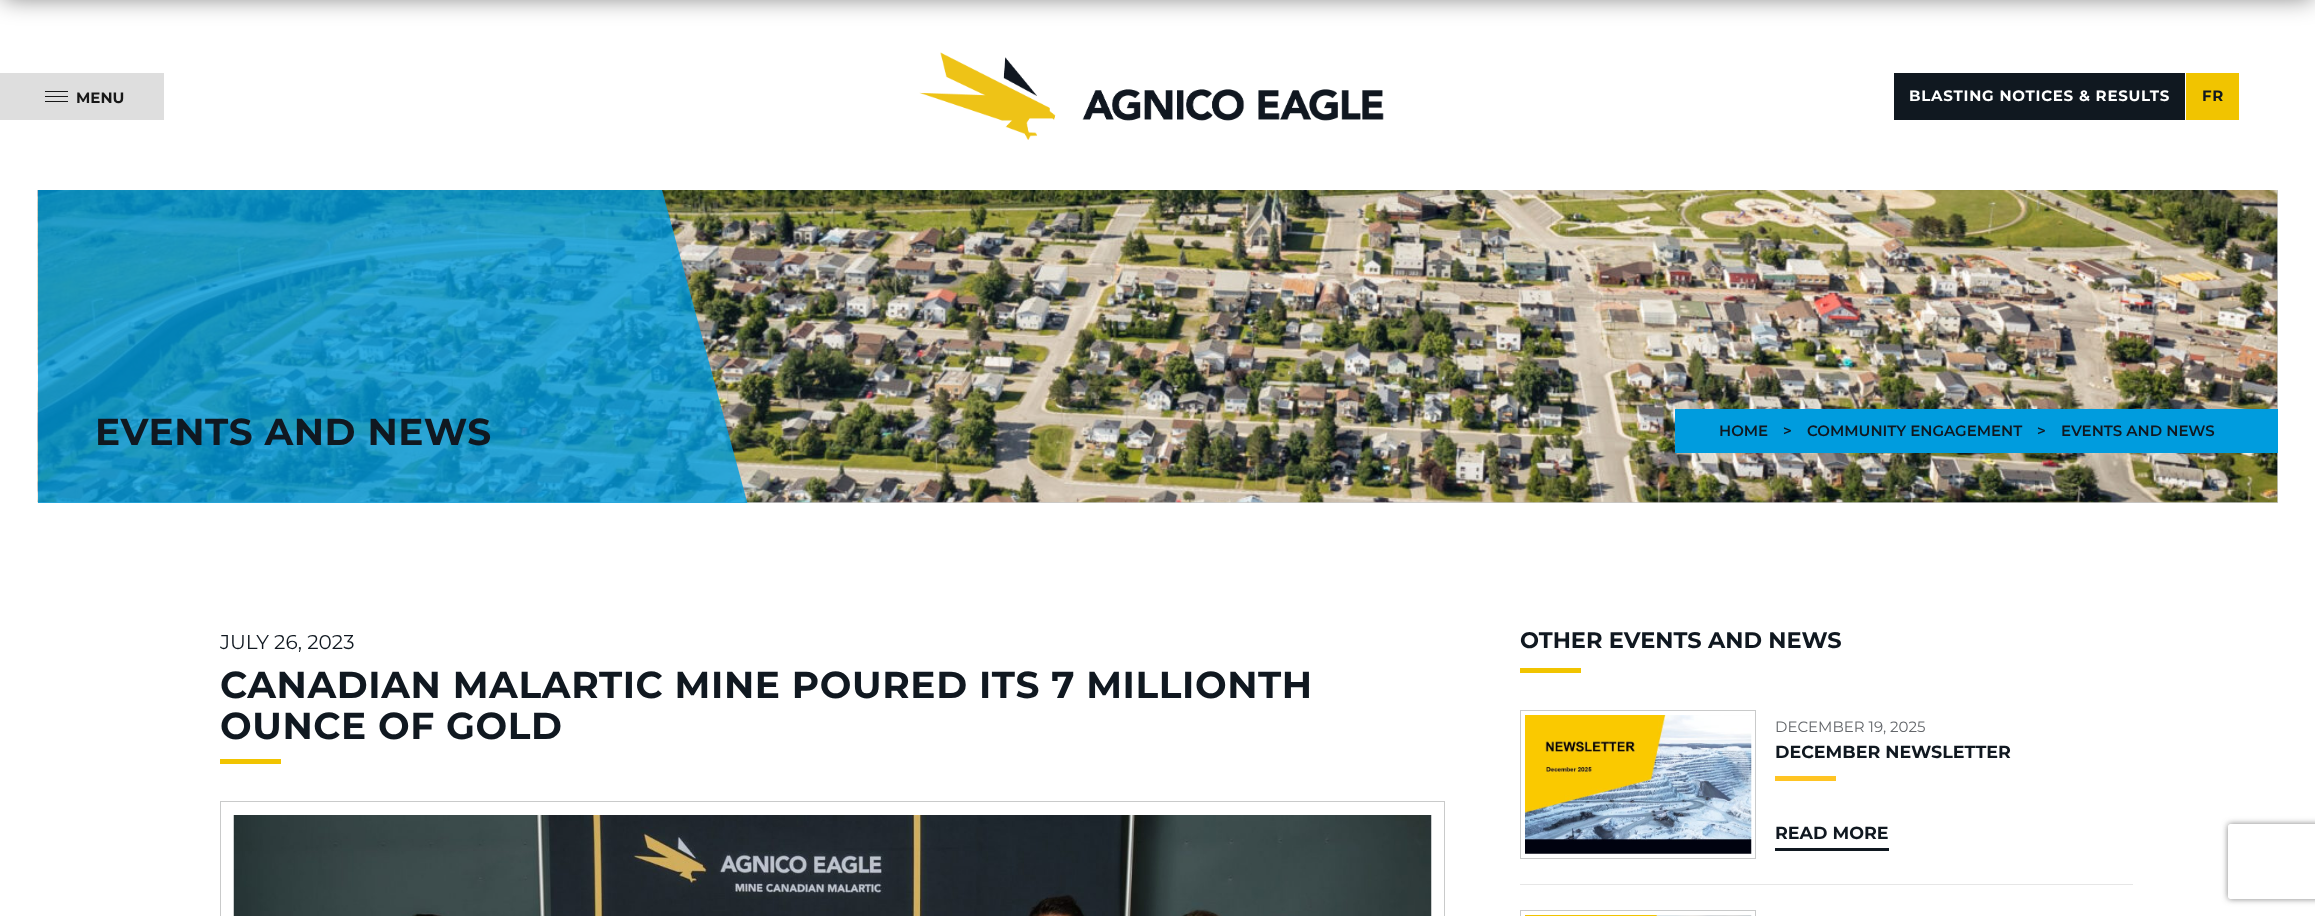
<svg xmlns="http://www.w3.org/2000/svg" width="2315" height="916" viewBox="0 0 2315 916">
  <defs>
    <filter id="blur1" x="-50%" y="-200%" width="200%" height="500%"><feGaussianBlur stdDeviation="12.5"/></filter>
    <clipPath id="clip1"><rect x="38" y="190" width="2240" height="313"/></clipPath>
    <clipPath id="clip2"><path d="M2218 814H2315V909H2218ZM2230.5 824H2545.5C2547 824 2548 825 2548 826.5V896.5C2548 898 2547 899 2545.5 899H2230.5C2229 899 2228 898 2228 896.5V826.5C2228 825 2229 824 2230.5 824Z" clip-rule="evenodd"/></clipPath>
    <filter id="blur2" x="-50%" y="-200%" width="200%" height="500%"><feGaussianBlur stdDeviation="3"/></filter>
  </defs>
  <rect width="100%" height="100%" fill="#ffffff"/>
  <rect x="3" y="-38" width="2310" height="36" fill="#151515" fill-opacity="0.5" filter="url(#blur1)"/>
  <rect x="0" y="73" width="164" height="47" fill="#dedede"/>
  <rect x="45" y="96" width="23" height="1" fill="#181818"/>
  <rect x="45" y="91" width="23" height="1" fill="#181818"/>
  <rect x="45" y="101" width="23" height="1" fill="#181818"/>
  <text x="76" y="103" font-family="Montserrat" font-size="15" font-weight="bold" fill="#181818">MENU</text>
  <image x="919" y="52" width="465" height="88" href="img1.png"/>
  <rect x="1894" y="73" width="291" height="47" fill="#101820"/>
  <text x="1909" y="101" font-family="Montserrat" font-size="15" font-weight="bold" letter-spacing="0.75" fill="#ffffff">BLASTING NOTICES &amp; RESULTS</text>
  <rect x="2186" y="73" width="53" height="47" fill="#f1c400"/>
  <text x="2202" y="101" font-family="Montserrat" font-size="15" font-weight="bold" letter-spacing="0.75" fill="#101820">FR</text>
  <rect x="38" y="190" width="2240" height="313" fill="#c9caca"/>
  <image x="37" y="190" width="2241" height="313" href="img2.png"/>
  <g clip-path="url(#clip1)">
    <path d="M912 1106H38V190H662Z" fill="#009cde" fill-opacity="0.8"/>
  </g>
  <text x="95" y="445" font-family="Montserrat" font-size="37.5" font-weight="bold" letter-spacing="0.6" fill="#101820">EVENTS AND NEWS</text>
  <rect x="1675" y="409" width="603" height="44" fill="#009cde"/>
  <text x="1719" y="436" font-family="Montserrat" font-size="15" font-weight="600" fill="#101820">HOME</text>
  <text x="1783" y="436" font-family="Montserrat" font-size="15" font-weight="600" fill="#101820">&gt;</text>
  <text x="1807" y="436" font-family="Montserrat" font-size="15" font-weight="600" fill="#101820">COMMUNITY ENGAGEMENT</text>
  <text x="2037" y="436" font-family="Montserrat" font-size="15" font-weight="600" fill="#101820">&gt;</text>
  <text x="2061" y="436" font-family="Montserrat" font-size="15" font-weight="600" fill="#101820">EVENTS AND NEWS</text>
  <text x="220" y="649" font-family="Montserrat" font-size="20" fill="#101820">JULY 26, 2023</text>
  <text x="220" y="698" font-family="Montserrat" font-size="37.5" font-weight="bold" letter-spacing="0.6" fill="#101820">CANADIAN MALARTIC MINE POURED ITS 7 MILLIONTH</text>
  <text x="220" y="739" font-family="Montserrat" font-size="37.5" font-weight="bold" letter-spacing="0.6" fill="#101820">OUNCE OF GOLD</text>
  <rect x="220" y="759" width="61" height="5" fill="#f1c400"/>
  <rect x="220.5" y="801.5" width="1224" height="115" fill="none" stroke="#c9caca"/>
  <image x="233" y="815" width="1199" height="101" href="img3.png"/>
  <text x="1520" y="648" font-family="Montserrat" font-size="22.5" font-weight="bold" fill="#101820">OTHER EVENTS AND NEWS</text>
  <rect x="1520" y="668" width="61" height="5" fill="#f1c400"/>
  <rect x="1520.5" y="710.5" width="235" height="148" fill="none" stroke="#c9caca"/>
  <image x="1525" y="715" width="227" height="139" href="img4.png"/>
  <text x="1775" y="732" font-family="Montserrat" font-size="15" fill="#63666a">DECEMBER 19, 2025</text>
  <text x="1775" y="758" font-family="Montserrat" font-size="17.5" font-weight="bold" fill="#101820">DECEMBER NEWSLETTER</text>
  <rect x="1775" y="776" width="61" height="5" fill="#ffc423"/>
  <text x="1775" y="839" font-family="Montserrat" font-size="17.5" font-weight="bold" fill="#101820">READ MORE</text>
  <rect x="1775" y="848" width="114" height="3" fill="#101820"/>
  <rect x="1520" y="884" width="613" height="1" fill="#e6e6e6"/>
  <rect x="1520.5" y="910.5" width="235" height="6" fill="none" stroke="#c9caca"/>
  <image x="1525" y="915" width="227" height="1" href="img5.png"/>
  <g clip-path="url(#clip2)">
    <rect x="2228" y="824" width="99" height="75" rx="2.5" fill="#808080" filter="url(#blur2)"/>
  </g>
</svg>
